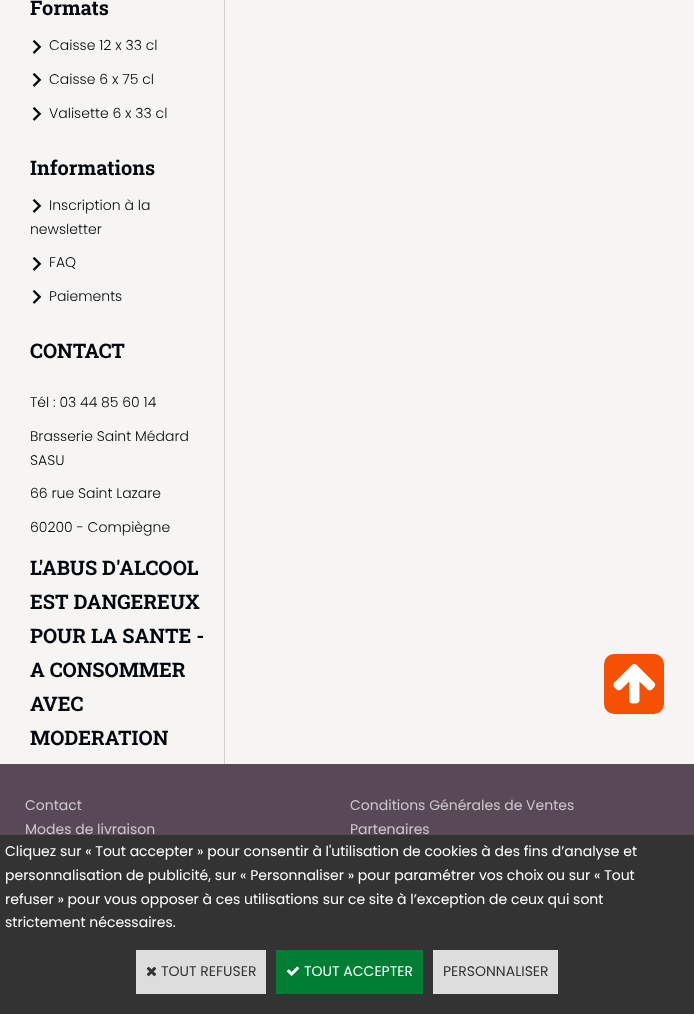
<svg xmlns="http://www.w3.org/2000/svg" width="694" height="1014" viewBox="0 0 694 1014">
  <rect width="100%" height="100%" fill="#f6f5f3"/>
  <rect x="224" y="0" width="1" height="764" fill="#d0d0d0"/>
  <text x="30" y="15" font-family="Roboto Slab" font-size="20" font-weight="bold" fill="#02080d">Formats</text>
  <image x="32" y="40" width="10" height="14" href="img1.png"/>
  <text x="49" y="50" font-family="Poppins" font-size="14" font-weight="300" fill="#02080d">Caisse 12 x 33 cl</text>
  <image x="32" y="73" width="10" height="14" href="img1.png"/>
  <text x="49" y="84" font-family="Poppins" font-size="14" font-weight="300" fill="#02080d">Caisse 6 x 75 cl</text>
  <image x="32" y="107" width="10" height="14" href="img1.png"/>
  <text x="49" y="118" font-family="Poppins" font-size="14" font-weight="300" fill="#02080d">Valisette 6 x 33 cl</text>
  <text x="30" y="175" font-family="Roboto Slab" font-size="20" font-weight="bold" fill="#02080d">Informations</text>
  <image x="32" y="199" width="10" height="14" href="img1.png"/>
  <text x="49" y="210" font-family="Poppins" font-size="14" font-weight="300" fill="#02080d">Inscription à la</text>
  <text x="30" y="234" font-family="Poppins" font-size="14" font-weight="300" fill="#02080d">newsletter</text>
  <image x="32" y="257" width="10" height="14" href="img1.png"/>
  <text x="49" y="267" font-family="Poppins" font-size="14" font-weight="300" fill="#02080d">FAQ</text>
  <image x="32" y="290" width="10" height="14" href="img1.png"/>
  <text x="49" y="301" font-family="Poppins" font-size="14" font-weight="300" fill="#02080d">Paiements</text>
  <text x="30" y="358" font-family="Roboto Slab" font-size="20" font-weight="bold" fill="#02080d">CONTACT</text>
  <text x="30" y="407" font-family="Poppins" font-size="14" font-weight="300" fill="#02080d">Tél : 03 44 85 60 14</text>
  <text x="30" y="441" font-family="Poppins" font-size="14" font-weight="300" fill="#02080d">Brasserie Saint Médard</text>
  <text x="30" y="465" font-family="Poppins" font-size="14" font-weight="300" fill="#02080d">SASU</text>
  <text x="30" y="498" font-family="Poppins" font-size="14" font-weight="300" fill="#02080d">66 rue Saint Lazare</text>
  <text x="30" y="532" font-family="Poppins" font-size="14" font-weight="300" fill="#02080d">60200 - Compiègne</text>
  <text x="30" y="575" font-family="Roboto Slab" font-size="20" font-weight="bold" fill="#02080d">L'ABUS D'ALCOOL</text>
  <text x="30" y="609" font-family="Roboto Slab" font-size="20" font-weight="bold" fill="#02080d">EST DANGEREUX</text>
  <text x="30" y="643" font-family="Roboto Slab" font-size="20" font-weight="bold" fill="#02080d">POUR LA SANTE -</text>
  <text x="30" y="677" font-family="Roboto Slab" font-size="20" font-weight="bold" fill="#02080d">A CONSOMMER</text>
  <text x="30" y="711" font-family="Roboto Slab" font-size="20" font-weight="bold" fill="#02080d">AVEC</text>
  <text x="30" y="745" font-family="Roboto Slab" font-size="20" font-weight="bold" fill="#02080d">MODERATION</text>
  <rect x="604" y="654" width="60" height="60" rx="10" fill="#f55004"/>
  <image x="613" y="664" width="43" height="40" href="img2.png"/>
  <rect x="0" y="764" width="694" height="71" fill="#594856"/>
  <text x="25" y="810" font-family="Poppins" font-size="14" fill="#cdc8cc">Contact</text>
  <text x="25" y="834" font-family="Poppins" font-size="14" fill="#cdc8cc">Modes de livraison</text>
  <text x="350" y="810" font-family="Poppins" font-size="14" fill="#cdc8cc">Conditions Générales de Ventes</text>
  <text x="350" y="834" font-family="Poppins" font-size="14" fill="#cdc8cc">Partenaires</text>
  <rect x="0" y="835" width="694" height="179" fill="#333333"/>
  <text x="5" y="856" font-family="Poppins" font-size="14" fill="#ffffff">Cliquez sur « Tout accepter » pour consentir à l'utilisation de cookies à des fins d’analyse et</text>
  <text x="5" y="880" font-family="Poppins" font-size="14" fill="#ffffff">personnalisation de publicité, sur « Personnaliser » pour paramétrer vos choix ou sur « Tout</text>
  <text x="5" y="904" font-family="Poppins" font-size="14" fill="#ffffff">refuser » pour vous opposer à ces utilisations sur ce site à l’exception de ceux qui sont</text>
  <text x="5" y="927" font-family="Poppins" font-size="14" fill="#ffffff">strictement nécessaires.</text>
  <rect x="136" y="950" width="130" height="44" fill="#dddddd"/>
  <image x="146" y="966" width="11" height="11" href="img3.png"/>
  <text x="161" y="976" font-family="Poppins" font-size="14" fill="#333333">TOUT REFUSER</text>
  <rect x="276" y="950" width="147" height="44" fill="#007e33"/>
  <image x="287" y="966" width="12" height="10" href="img4.png"/>
  <text x="304" y="976" font-family="Poppins" font-size="14" fill="#ffffff">TOUT ACCEPTER</text>
  <rect x="433" y="950" width="125" height="44" fill="#dddddd"/>
  <text x="443" y="976" font-family="Poppins" font-size="14" fill="#333333">PERSONNALISER</text>
</svg>
